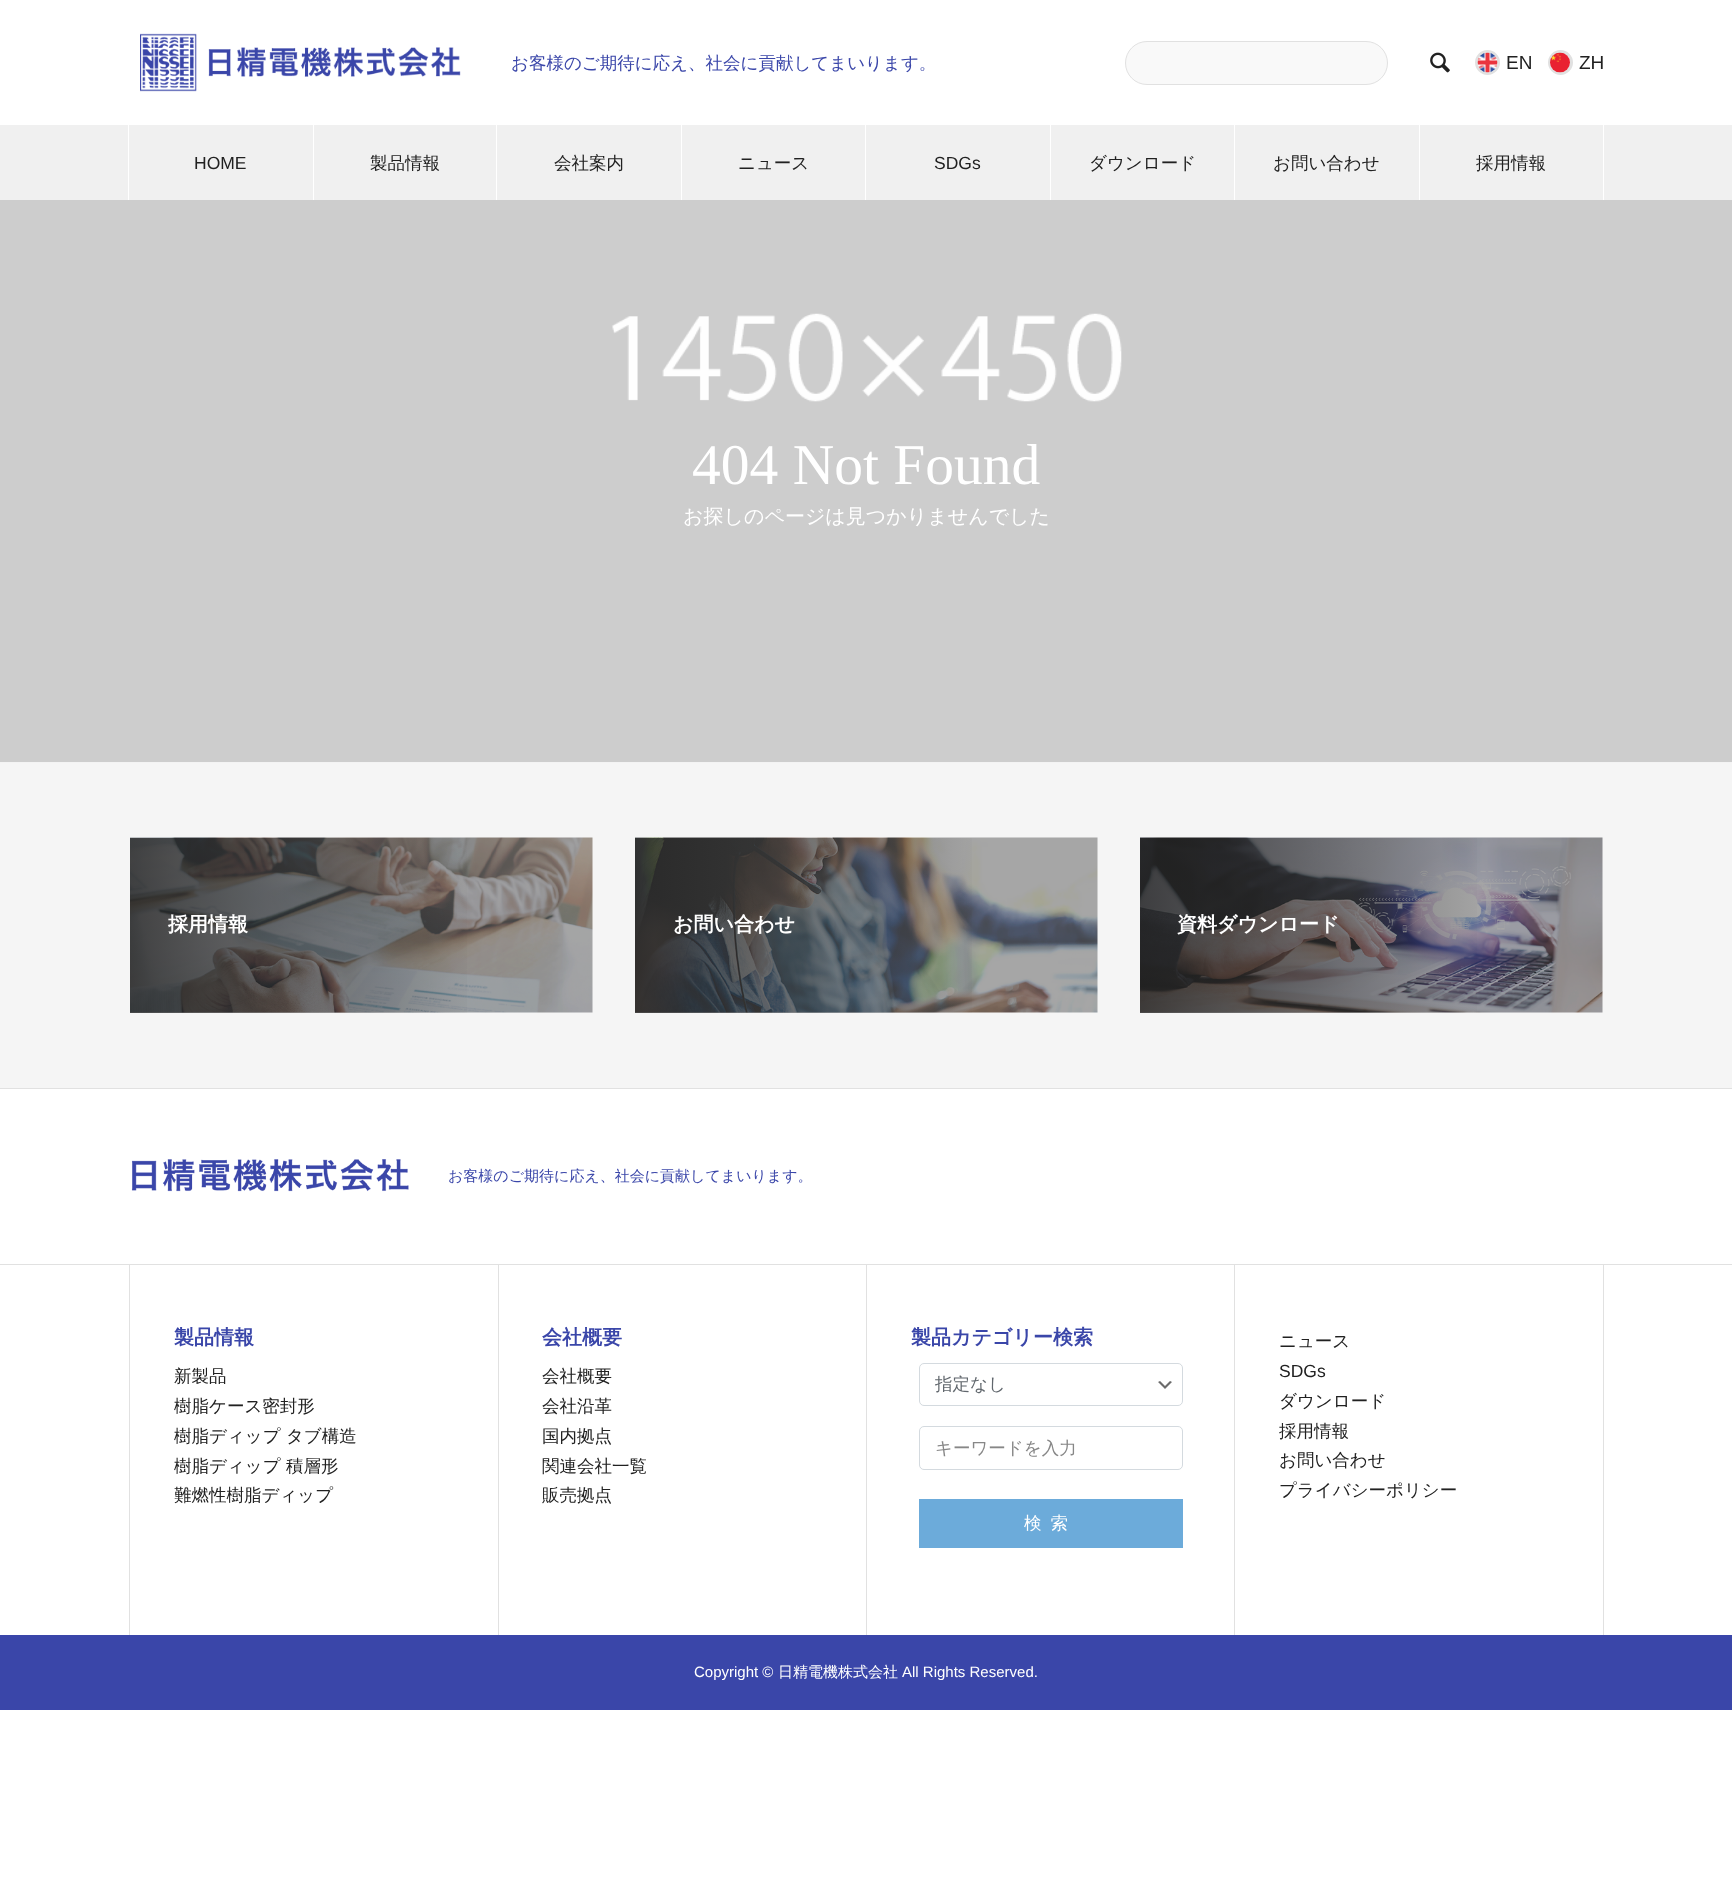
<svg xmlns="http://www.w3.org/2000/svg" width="1732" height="1879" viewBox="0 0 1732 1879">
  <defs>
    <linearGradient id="g1" gradientUnits="userSpaceOnUse" x1="130" y1="925" x2="593" y2="925"><stop offset="0" stop-color="#212121" stop-opacity="0.75"/><stop offset="0.75" stop-color="#212121" stop-opacity="0"/></linearGradient>
    <linearGradient id="g2" gradientUnits="userSpaceOnUse" x1="635" y1="925" x2="1098" y2="925"><stop offset="0" stop-color="#212121" stop-opacity="0.75"/><stop offset="0.75" stop-color="#212121" stop-opacity="0"/></linearGradient>
    <linearGradient id="g3" gradientUnits="userSpaceOnUse" x1="1140" y1="925" x2="1603" y2="925"><stop offset="0" stop-color="#212121" stop-opacity="0.75"/><stop offset="0.75" stop-color="#212121" stop-opacity="0"/></linearGradient>
  </defs>
  <rect width="100%" height="100%" fill="#ffffff"/>
  <image x="140" y="33" width="321" height="59" href="img1.png"/>
  <text x="511" y="69" font-family="WenQuanYi Zen Hei" font-size="17.5" font-weight="500" fill="#3a46a9">お客様のご期待に応え、社会に貢献してまいります。</text>
  <rect x="1125.5" y="41.5" width="262" height="43" rx="21.5" fill="#f9f9f9" stroke="#e1e1e1"/>
  <image x="1430" y="52" width="20" height="21" href="img2.png"/>
  <circle cx="1487.5" cy="62.5" r="11" fill="none" stroke="#e1e1e1" stroke-width="3"/>
  <image x="1477" y="52" width="21" height="21" href="img3.png"/>
  <text x="1506" y="69" font-family="Liberation Sans" font-size="19" fill="#212121">EN</text>
  <circle cx="1560.5" cy="62.5" r="11" fill="none" stroke="#e1e1e1" stroke-width="3"/>
  <image x="1550" y="52" width="20" height="21" href="img4.png"/>
  <text x="1579" y="69" font-family="Liberation Sans" font-size="19" fill="#212121">ZH</text>
  <rect x="0" y="125" width="1732" height="75" fill="#f0f0f0"/>
  <rect x="313" y="125" width="1" height="75" fill="#ffffff"/>
  <rect x="128" y="125" width="1" height="75" fill="#ffffff"/>
  <text x="194" y="169" font-family="Liberation Sans" font-size="17.5" fill="#212121">HOME</text>
  <rect x="496" y="125" width="1" height="75" fill="#ffffff"/>
  <text x="370" y="169" font-family="WenQuanYi Zen Hei" font-size="17.5" font-weight="500" fill="#212121">製品情報</text>
  <text x="554" y="169" font-family="WenQuanYi Zen Hei" font-size="17.5" font-weight="500" fill="#212121">会社案内</text>
  <rect x="865" y="125" width="1" height="75" fill="#ffffff"/>
  <rect x="681" y="125" width="1" height="75" fill="#ffffff"/>
  <text x="738" y="169" font-family="WenQuanYi Zen Hei" font-size="17.5" font-weight="500" fill="#212121">ニュース</text>
  <rect x="1050" y="125" width="1" height="75" fill="#ffffff"/>
  <text x="934" y="169" font-family="Liberation Sans" font-size="17.5" fill="#212121">SDGs</text>
  <rect x="1234" y="125" width="1" height="75" fill="#ffffff"/>
  <text x="1089" y="169" font-family="WenQuanYi Zen Hei" font-size="17.5" font-weight="500" fill="#212121">ダウンロード</text>
  <rect x="1419" y="125" width="1" height="75" fill="#ffffff"/>
  <text x="1273" y="169" font-family="WenQuanYi Zen Hei" font-size="17.5" font-weight="500" fill="#212121">お問い合わせ</text>
  <rect x="1603" y="125" width="1" height="75" fill="#ffffff"/>
  <text x="1476" y="169" font-family="WenQuanYi Zen Hei" font-size="17.5" font-weight="500" fill="#212121">採用情報</text>
  <image x="0" y="200" width="1732" height="563" href="img5.png"/>
  <text x="692" y="484" font-family="Liberation Serif" font-size="57.5" fill="#ffffff">404 Not Found</text>
  <text x="683" y="523" font-family="WenQuanYi Zen Hei" font-size="20" font-weight="500" fill="#ffffff">お探しのページは見つかりませんでした</text>
  <rect x="0" y="763" width="1732" height="325" fill="#f5f5f5"/>
  <rect x="0" y="1088" width="1732" height="1" fill="#e1e1e1"/>
  <image x="130" y="837" width="463" height="176" href="img6.png"/>
  <rect x="130" y="838" width="337" height="175" fill="url(#g1)"/>
  <text x="168" y="931" font-family="WenQuanYi Zen Hei" font-size="20" font-weight="bold" fill="#ffffff">採用情報</text>
  <image x="635" y="837" width="463" height="176" href="img7.png"/>
  <rect x="635" y="838" width="337" height="175" fill="url(#g2)"/>
  <text x="673" y="931" font-family="WenQuanYi Zen Hei" font-size="20" font-weight="bold" fill="#ffffff">お問い合わせ</text>
  <image x="1140" y="837" width="463" height="176" href="img8.png"/>
  <rect x="1140" y="838" width="337" height="175" fill="url(#g3)"/>
  <text x="1177" y="931" font-family="WenQuanYi Zen Hei" font-size="20" font-weight="bold" fill="#ffffff">資料ダウンロード</text>
  <rect x="0" y="1264" width="1732" height="1" fill="#e1e1e1"/>
  <image x="131" y="1159" width="278" height="33" href="img9.png"/>
  <text x="448" y="1181" font-family="WenQuanYi Zen Hei" font-size="15" font-weight="500" fill="#3a46a9">お客様のご期待に応え、社会に貢献してまいります。</text>
  <rect x="129" y="1265" width="1" height="370" fill="#e1e1e1"/>
  <rect x="498" y="1265" width="1" height="370" fill="#e1e1e1"/>
  <text x="174" y="1344" font-family="WenQuanYi Zen Hei" font-size="20" font-weight="bold" fill="#3a46a9">製品情報</text>
  <text x="174" y="1382" font-family="WenQuanYi Zen Hei" font-size="17.5" font-weight="500" fill="#212121">新製品</text>
  <text x="174" y="1412" font-family="WenQuanYi Zen Hei" font-size="17.5" font-weight="500" fill="#212121">樹脂ケース密封形</text>
  <text x="174" y="1442" font-family="WenQuanYi Zen Hei" font-size="17.5" font-weight="500" fill="#212121">樹脂ディップ タブ構造</text>
  <text x="174" y="1472" font-family="WenQuanYi Zen Hei" font-size="17.5" font-weight="500" fill="#212121">樹脂ディップ 積層形</text>
  <text x="174" y="1501" font-family="WenQuanYi Zen Hei" font-size="17.5" font-weight="500" fill="#212121">難燃性樹脂ディップ</text>
  <rect x="866" y="1265" width="1" height="370" fill="#e1e1e1"/>
  <text x="542" y="1344" font-family="WenQuanYi Zen Hei" font-size="20" font-weight="bold" fill="#3a46a9">会社概要</text>
  <text x="542" y="1382" font-family="WenQuanYi Zen Hei" font-size="17.5" font-weight="500" fill="#212121">会社概要</text>
  <text x="542" y="1412" font-family="WenQuanYi Zen Hei" font-size="17.5" font-weight="500" fill="#212121">会社沿革</text>
  <text x="542" y="1442" font-family="WenQuanYi Zen Hei" font-size="17.5" font-weight="500" fill="#212121">国内拠点</text>
  <text x="542" y="1472" font-family="WenQuanYi Zen Hei" font-size="17.5" font-weight="500" fill="#212121">関連会社一覧</text>
  <text x="542" y="1501" font-family="WenQuanYi Zen Hei" font-size="17.5" font-weight="500" fill="#212121">販売拠点</text>
  <rect x="1234" y="1265" width="1" height="370" fill="#e1e1e1"/>
  <text x="911" y="1344" font-family="WenQuanYi Zen Hei" font-size="20" font-weight="bold" fill="#3a46a9">製品カテゴリー検索</text>
  <image x="1158" y="1381" width="14" height="8" href="img10.png"/>
  <rect x="919.5" y="1363.5" width="263" height="42" rx="4.5" fill="none" stroke="#d4dadf"/>
  <text x="935" y="1390" font-family="WenQuanYi Zen Hei" font-size="17.5" font-weight="500" fill="#61676d">指定なし</text>
  <rect x="919.5" y="1426.5" width="263" height="43" rx="4.5" fill="none" stroke="#d4dadf"/>
  <text x="935" y="1454" font-family="WenQuanYi Zen Hei" font-size="17.5" font-weight="500" fill="#878787">キーワードを入力</text>
  <rect x="919" y="1499" width="264" height="49" fill="#6cabda"/>
  <text x="1024" y="1529" font-family="WenQuanYi Zen Hei" font-size="17.5" font-weight="500" letter-spacing="9" fill="#ffffff">検索</text>
  <rect x="1603" y="1265" width="1" height="370" fill="#e1e1e1"/>
  <text x="1279" y="1347" font-family="WenQuanYi Zen Hei" font-size="17.5" font-weight="500" fill="#212121">ニュース</text>
  <text x="1279" y="1377" font-family="Liberation Sans" font-size="17.5" fill="#212121">SDGs</text>
  <text x="1279" y="1407" font-family="WenQuanYi Zen Hei" font-size="17.5" font-weight="500" fill="#212121">ダウンロード</text>
  <text x="1279" y="1437" font-family="WenQuanYi Zen Hei" font-size="17.5" font-weight="500" fill="#212121">採用情報</text>
  <text x="1279" y="1466" font-family="WenQuanYi Zen Hei" font-size="17.5" font-weight="500" fill="#212121">お問い合わせ</text>
  <text x="1279" y="1496" font-family="WenQuanYi Zen Hei" font-size="17.5" font-weight="500" fill="#212121">プライバシーポリシー</text>
  <rect x="0" y="1635" width="1732" height="75" fill="#3a46a9"/>
  <text x="694" y="1677" font-family="Liberation Sans" font-size="15" fill="#ffffff">Copyright ©</text>
  <text x="778" y="1677" font-family="WenQuanYi Zen Hei" font-size="15" font-weight="500" fill="#ffffff">日精電機株式会社</text>
  <text x="902" y="1677" font-family="Liberation Sans" font-size="15" fill="#ffffff">All Rights Reserved.</text>
</svg>
